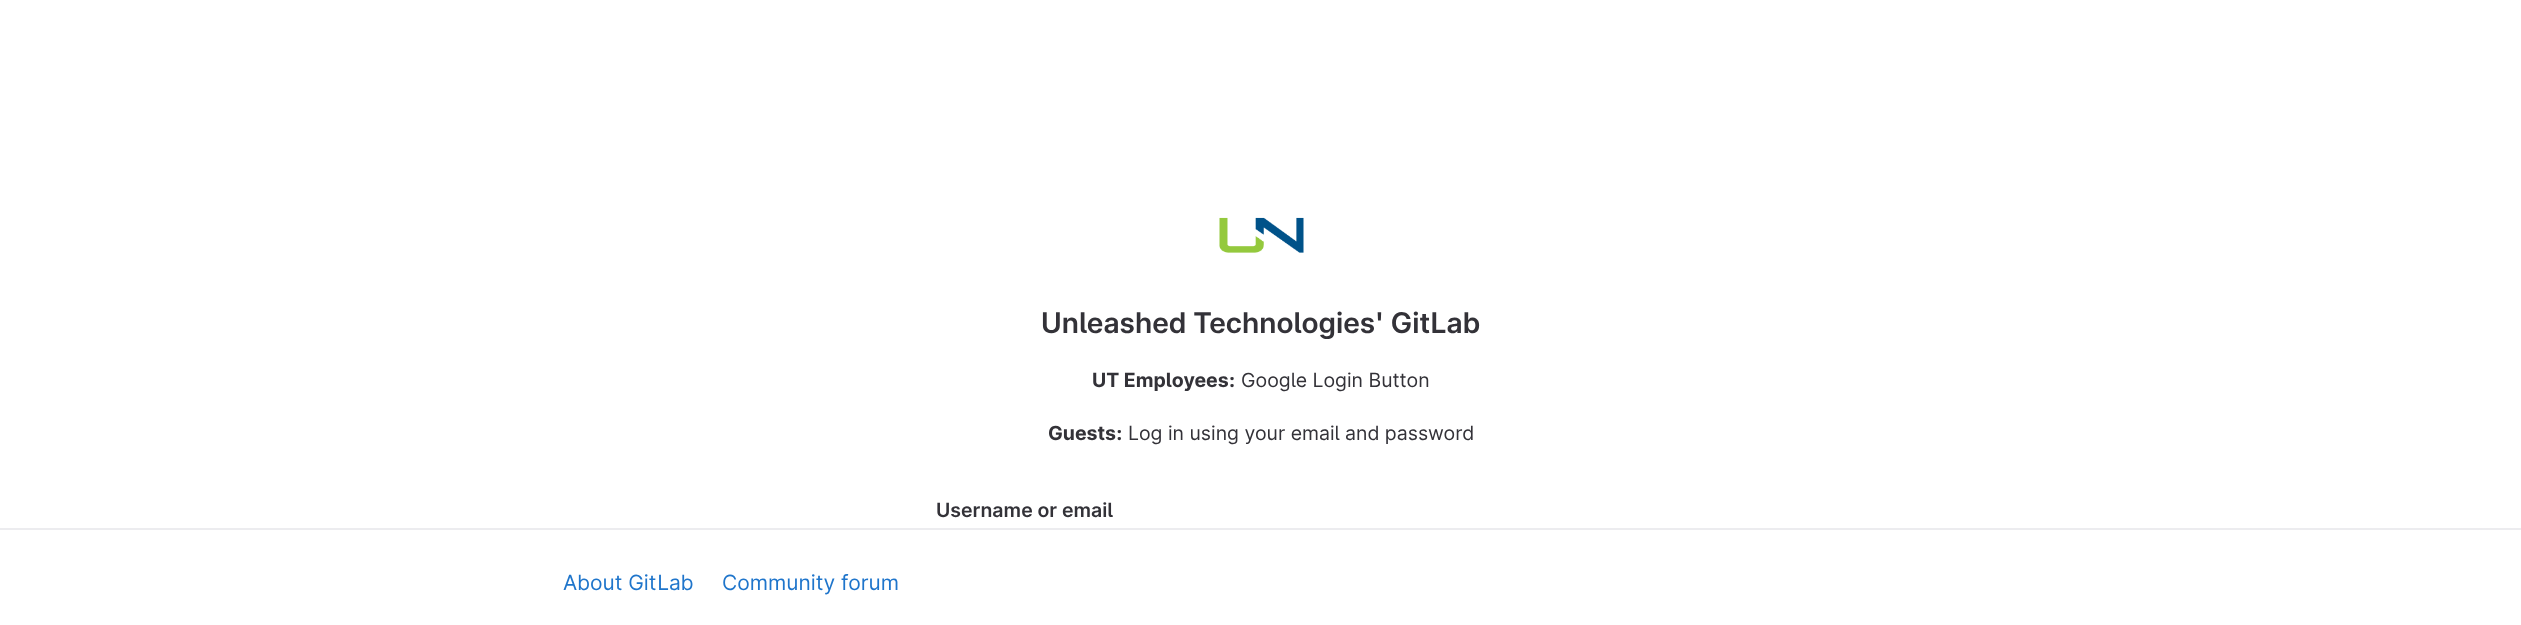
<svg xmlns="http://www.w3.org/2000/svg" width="2521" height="625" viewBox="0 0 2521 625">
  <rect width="100%" height="100%" fill="#ffffff"/>
  <image x="1219" y="217" width="85" height="36" href="img1.png"/>
  <text x="1041" y="333" font-family="'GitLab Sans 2'" font-size="28.5" font-weight="600" fill="#333238">Unleashed Technologies' GitLab</text>
  <text x="1092" y="387" font-family="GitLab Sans" font-size="19.5" font-weight="bold" fill="#333238">UT Employees:</text>
  <text x="1241" y="387" font-family="GitLab Sans" font-size="19.5" fill="#333238">Google Login Button</text>
  <text x="1048" y="440" font-family="GitLab Sans" font-size="19.5" font-weight="bold" fill="#333238">Guests:</text>
  <text x="1128" y="440" font-family="GitLab Sans" font-size="19.5" fill="#333238">Log in using your email and password</text>
  <text x="936" y="517" font-family="GitLab Sans" font-size="19.5" font-weight="600" fill="#333238">Username or email</text>
  <rect x="0" y="528" width="2521" height="2" fill="#ececef"/>
  <text x="563" y="590" font-family="GitLab Sans" font-size="21" fill="#1f75cb">About GitLab</text>
  <text x="722" y="590" font-family="GitLab Sans" font-size="21" fill="#1f75cb">Community forum</text>
</svg>
